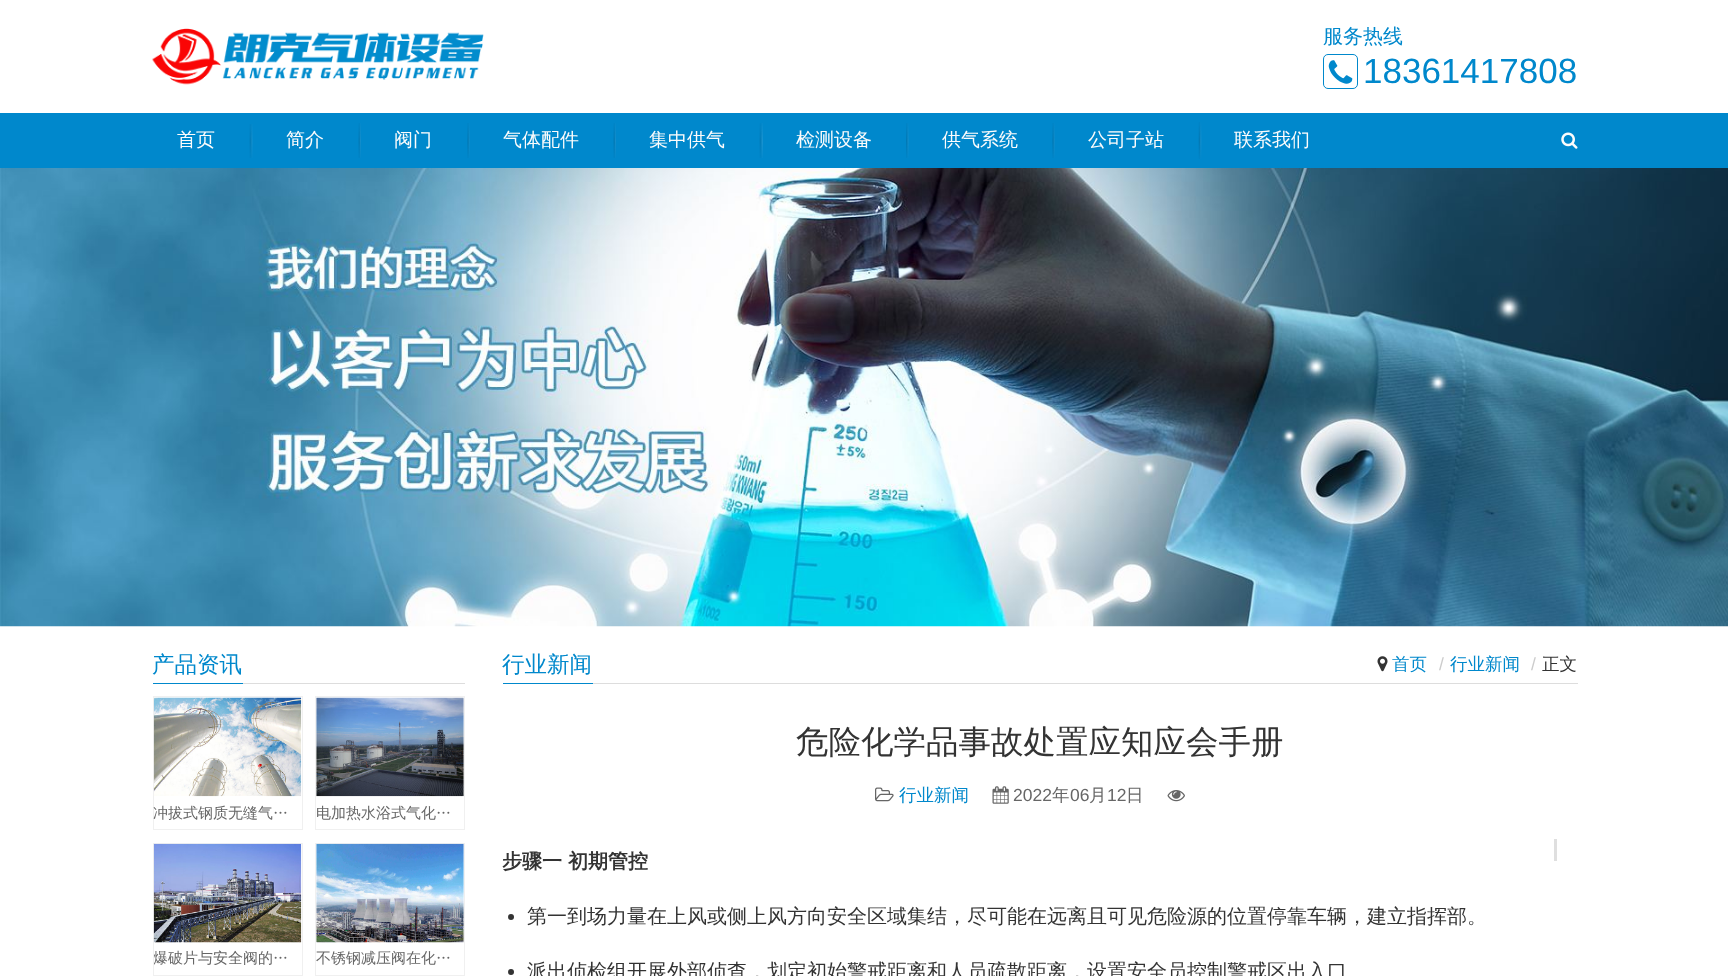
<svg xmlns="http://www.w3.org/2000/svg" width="1728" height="976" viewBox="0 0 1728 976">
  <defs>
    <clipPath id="clip1"><rect x="154" y="949" width="147" height="20"/></clipPath>
  </defs>
  <rect width="100%" height="100%" fill="#ffffff"/>
  <image x="152" y="28" width="332" height="57" href="img1.png"/>
  <text x="1323" y="43" font-family="WenQuanYi Zen Hei" font-size="20" font-weight="500" fill="#0088cc">服务热线</text>
  <rect x="1323.5" y="54.5" width="34" height="34" rx="4.5" fill="none" stroke="#0088cc"/>
  <image x="1328" y="60" width="25" height="24" href="img2.png"/>
  <text x="1363" y="83" font-family="Liberation Sans" font-size="35" fill="#0088cc">18361417808</text>
  <rect x="0" y="113" width="1728" height="55" fill="#0088cc"/>
  <image x="249" y="124" width="4" height="34" href="img3.png"/>
  <text x="177" y="146" font-family="WenQuanYi Zen Hei" font-size="19" font-weight="500" fill="#fcfcfc">首页</text>
  <image x="358" y="123" width="3" height="35" href="img4.png"/>
  <text x="286" y="146" font-family="WenQuanYi Zen Hei" font-size="19" font-weight="500" fill="#fcfcfc">简介</text>
  <image x="467" y="123" width="3" height="35" href="img5.png"/>
  <text x="394" y="146" font-family="WenQuanYi Zen Hei" font-size="19" font-weight="500" fill="#fcfcfc">阀门</text>
  <image x="613" y="123" width="3" height="35" href="img4.png"/>
  <text x="503" y="146" font-family="WenQuanYi Zen Hei" font-size="19" font-weight="500" fill="#fcfcfc">气体配件</text>
  <image x="759" y="123" width="4" height="35" href="img6.png"/>
  <text x="649" y="146" font-family="WenQuanYi Zen Hei" font-size="19" font-weight="500" fill="#fcfcfc">集中供气</text>
  <image x="906" y="123" width="3" height="35" href="img7.png"/>
  <text x="796" y="146" font-family="WenQuanYi Zen Hei" font-size="19" font-weight="500" fill="#fcfcfc">检测设备</text>
  <image x="1052" y="123" width="3" height="35" href="img5.png"/>
  <text x="942" y="146" font-family="WenQuanYi Zen Hei" font-size="19" font-weight="500" fill="#fcfcfc">供气系统</text>
  <image x="1198" y="122" width="4" height="37" href="img8.png"/>
  <text x="1088" y="146" font-family="WenQuanYi Zen Hei" font-size="19" font-weight="500" fill="#fcfcfc">公司子站</text>
  <text x="1234" y="146" font-family="WenQuanYi Zen Hei" font-size="19" font-weight="500" fill="#fcfcfc">联系我们</text>
  <image x="1561" y="132" width="17" height="17" href="img9.png"/>
  <image x="0" y="168" width="1728" height="459" href="img10.png"/>
  <rect x="243" y="683" width="222" height="1" fill="#dddddd"/>
  <rect x="153" y="683" width="90" height="1" fill="#0088cc"/>
  <text x="152" y="672" font-family="WenQuanYi Zen Hei" font-size="22.5" font-weight="500" fill="#0088cc">产品资讯</text>
  <rect x="153.5" y="696.5" width="149" height="133" fill="none" stroke="#f0f0f0"/>
  <image x="153" y="697" width="149" height="100" href="img11.png"/>
  <text x="153" y="818" font-family="WenQuanYi Zen Hei" font-size="15" font-weight="500" fill="#666666">冲拔式钢质无缝气…</text>
  <rect x="315.5" y="696.5" width="149" height="133" fill="none" stroke="#f0f0f0"/>
  <image x="316" y="697" width="148" height="100" href="img12.png"/>
  <text x="316" y="818" font-family="WenQuanYi Zen Hei" font-size="15" font-weight="500" fill="#666666">电加热水浴式气化…</text>
  <rect x="153.5" y="843.5" width="149" height="132" fill="none" stroke="#f0f0f0"/>
  <image x="153" y="843" width="149" height="100" href="img13.png"/>
  <g clip-path="url(#clip1)">
    <text x="153" y="963" font-family="WenQuanYi Zen Hei" font-size="15" font-weight="500" fill="#666666">爆破片与安全阀的…</text>
  </g>
  <rect x="315.5" y="843.5" width="149" height="132" fill="none" stroke="#f0f0f0"/>
  <image x="316" y="843" width="148" height="100" href="img14.png"/>
  <text x="316" y="963" font-family="WenQuanYi Zen Hei" font-size="15" font-weight="500" fill="#666666">不锈钢减压阀在化…</text>
  <rect x="593" y="683" width="985" height="1" fill="#dddddd"/>
  <rect x="503" y="683" width="90" height="1" fill="#0088cc"/>
  <text x="502" y="672" font-family="WenQuanYi Zen Hei" font-size="22.5" font-weight="500" fill="#0088cc">行业新闻</text>
  <image x="1377" y="656" width="11" height="16" href="img15.png"/>
  <text x="1392" y="670" font-family="WenQuanYi Zen Hei" font-size="17.5" font-weight="500" fill="#0088cc">首页</text>
  <text x="1439" y="670" font-family="Liberation Sans" font-size="17.5" fill="#cccccc">/</text>
  <text x="1450" y="670" font-family="WenQuanYi Zen Hei" font-size="17.5" font-weight="500" fill="#0088cc">行业新闻</text>
  <text x="1531" y="670" font-family="Liberation Sans" font-size="17.5" fill="#cccccc">/</text>
  <text x="1542" y="670" font-family="WenQuanYi Zen Hei" font-size="17.5" font-weight="500" fill="#333333">正文</text>
  <text x="796" y="753" font-family="WenQuanYi Zen Hei" font-size="32.5" font-weight="500" fill="#333333">危险化学品事故处置应知应会手册</text>
  <image x="875" y="787" width="19" height="15" href="img16.png"/>
  <text x="899" y="801" font-family="WenQuanYi Zen Hei" font-size="17.5" font-weight="500" fill="#0088cc">行业新闻</text>
  <image x="992" y="786" width="17" height="18" href="img17.png"/>
  <text x="1013" y="801" font-family="Liberation Sans" font-size="17.5" fill="#666666">2022</text>
  <text x="1052" y="801" font-family="WenQuanYi Zen Hei" font-size="17.5" font-weight="500" fill="#666666">年</text>
  <text x="1070" y="801" font-family="Liberation Sans" font-size="17.5" fill="#666666">06</text>
  <text x="1089" y="801" font-family="WenQuanYi Zen Hei" font-size="17.5" font-weight="500" fill="#666666">月</text>
  <text x="1107" y="801" font-family="Liberation Sans" font-size="17.5" fill="#666666">12</text>
  <text x="1126" y="801" font-family="WenQuanYi Zen Hei" font-size="17.5" font-weight="500" fill="#666666">日</text>
  <image x="1167" y="790" width="18" height="12" href="img18.png"/>
  <text x="502" y="868" font-family="WenQuanYi Zen Hei" font-size="20" font-weight="bold" fill="#333333">步骤一 初期管控</text>
  <circle cx="511" cy="917" r="3" fill="#333333"/>
  <text x="527" y="923" font-family="WenQuanYi Zen Hei" font-size="20" font-weight="500" fill="#333333">第一到场力量在上风或侧上风方向安全区域集结，尽可能在远离且可见危险源的位置停靠车辆，建立指挥部。</text>
  <circle cx="511" cy="972" r="3" fill="#333333"/>
  <text x="527" y="978" font-family="WenQuanYi Zen Hei" font-size="20" font-weight="500" fill="#333333">派出侦检组开展外部侦查，划定初始警戒距离和人员疏散距离，设置安全员控制警戒区出入口</text>
  <rect x="1554" y="839" width="3" height="22" fill="#dfdfdf"/>
</svg>
